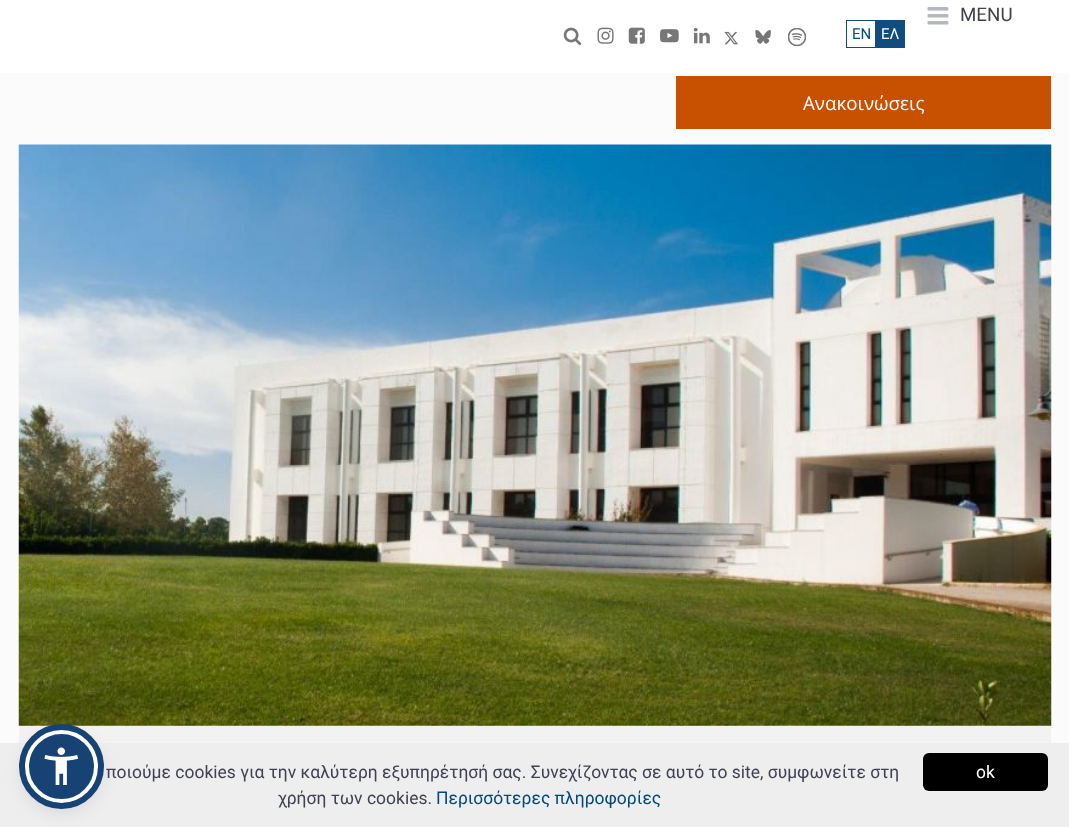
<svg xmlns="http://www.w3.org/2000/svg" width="1069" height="827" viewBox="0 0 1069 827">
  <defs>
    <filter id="blur1" x="-50%" y="-200%" width="200%" height="500%"><feGaussianBlur stdDeviation="2.5"/></filter>
    <filter id="blur2" x="-50%" y="-200%" width="200%" height="500%"><feGaussianBlur stdDeviation="9.5"/></filter>
  </defs>
  <rect width="100%" height="100%" fill="#ffffff"/>
  <image x="927" y="7" width="22" height="18" href="img1.png"/>
  <text x="960" y="21" font-family="Roboto" font-size="18.75" fill="#3f4254">MENU</text>
  <image x="563" y="27" width="19" height="19" href="img2.png"/>
  <image x="597" y="27" width="17" height="17" href="img3.png"/>
  <image x="628" y="27" width="17" height="17" href="img4.png"/>
  <image x="660" y="29" width="19" height="14" href="img5.png"/>
  <image x="693" y="27" width="17" height="17" href="img6.png"/>
  <image x="724" y="31" width="14" height="14" href="img7.png"/>
  <image x="755" y="30" width="16" height="14" href="img8.png"/>
  <image x="788" y="28" width="18" height="18" href="img9.png"/>
  <rect x="846.5" y="20.5" width="29" height="27" fill="none" stroke="#104c80"/>
  <text x="852" y="39" font-family="Roboto" font-size="15" fill="#004a80">ΕN</text>
  <rect x="876" y="20" width="29" height="28" fill="#104c80"/>
  <text x="881" y="39" font-family="Roboto" font-size="15" fill="#ffffff">ΕΛ</text>
  <rect x="0" y="73" width="1069" height="670" fill="#fbfbfc"/>
  <rect x="676" y="76" width="375" height="53" fill="#c75001"/>
  <text x="803" y="110" font-family="Open Sans" font-size="18.75" fill="#ffffff">Ανακοινώσεις</text>
  <rect x="19" y="725" width="1032" height="18" fill="#f2f2f2"/>
  <image x="18" y="144" width="1034" height="582" href="img10.png"/>
  <rect x="0" y="743" width="1069" height="84" fill="#eeeeee"/>
  <rect x="25" y="733" width="73" height="72" rx="36" fill="#5d6494" fill-opacity="0.2" filter="url(#blur1)"/>
  <rect x="25" y="736" width="73" height="73" rx="36.5" fill="#252c61" fill-opacity="0.15" filter="url(#blur2)"/>
  <circle cx="61.5" cy="766.5" r="34.5" fill="#174374" stroke="#ffffff" stroke-width="4"/>
  <circle cx="61.5" cy="766.5" r="39.5" fill="none" stroke="#174374" stroke-width="6"/>
  <image x="44" y="747" width="35" height="38" href="img11.png"/>
  <text x="106" y="778" font-family="Roboto" font-size="17.5" fill="#3f4254">ποιούμε cookies για την καλύτερη εξυπηρέτησή σας. Συνεχίζοντας σε αυτό το site, συμφωνείτε στη</text>
  <text x="278" y="804" font-family="Roboto" font-size="17.5" fill="#3f4254">χρήση των cookies.</text>
  <text x="436" y="804" font-family="Roboto" font-size="17.5" fill="#004a80">Περισσότερες πληροφορίες</text>
  <rect x="923" y="753" width="125" height="38" rx="6" fill="#000000"/>
  <text x="976" y="778" font-family="Roboto" font-size="17.5" fill="#ffffff">ok</text>
</svg>
